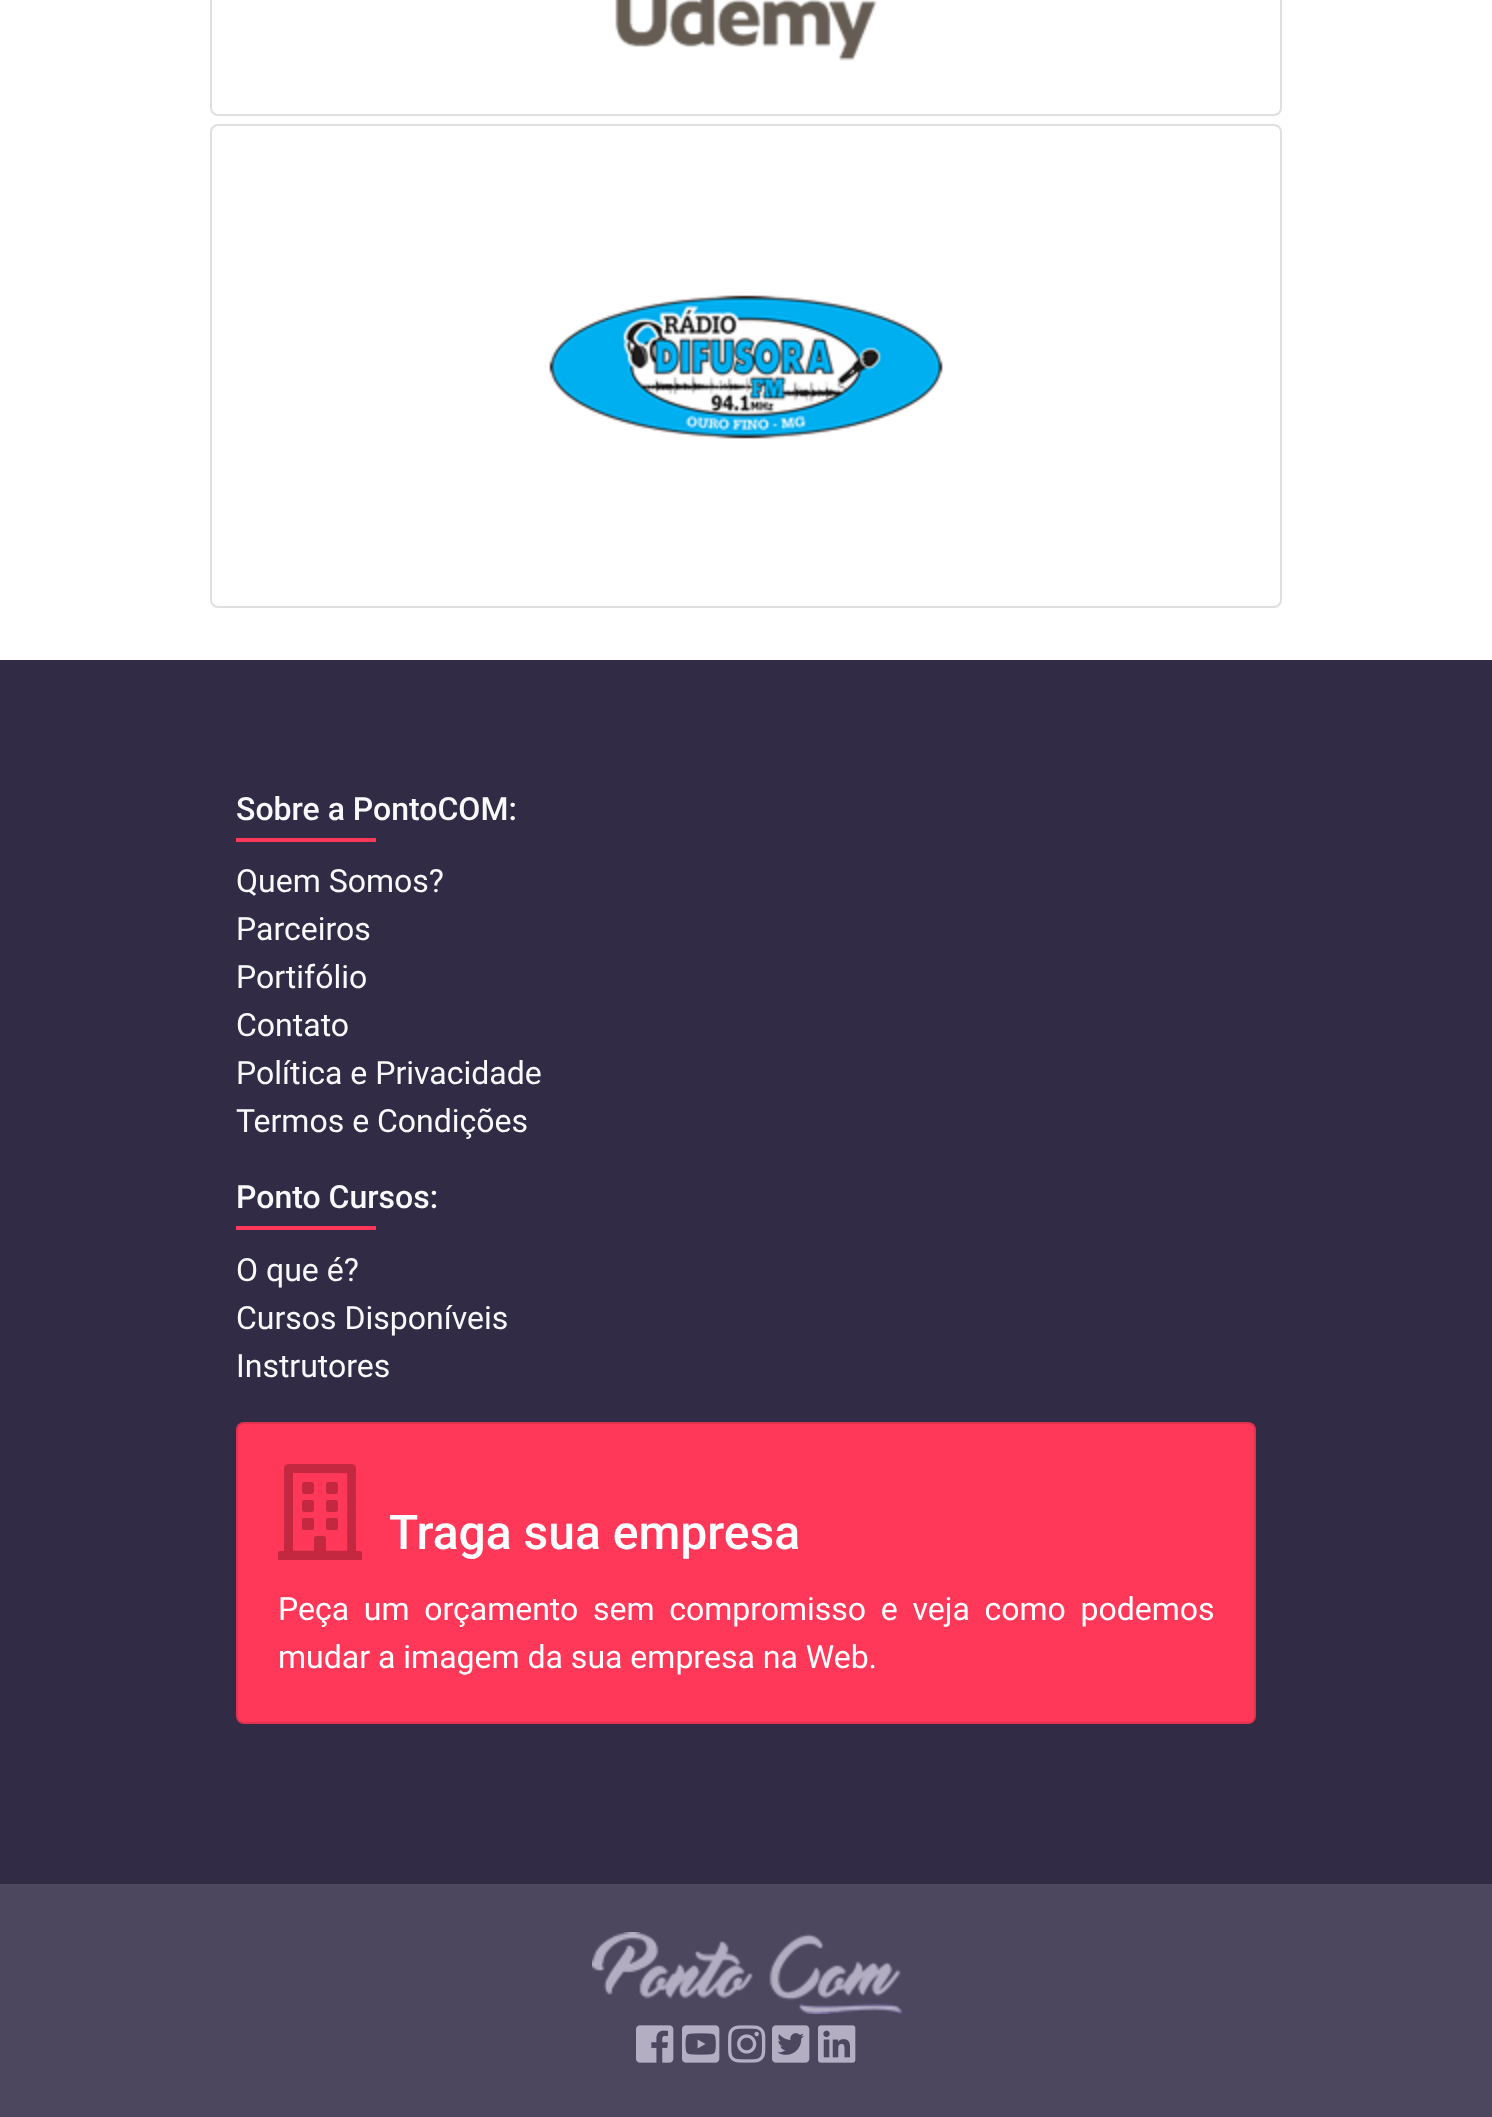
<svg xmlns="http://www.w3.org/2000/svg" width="1492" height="2117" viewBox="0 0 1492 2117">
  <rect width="100%" height="100%" fill="#ffffff"/>
  <rect x="211" y="-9" width="1070" height="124" rx="7" fill="none" stroke="#dfdfdf" stroke-width="2"/>
  <image x="615" y="0" width="262" height="61" href="img1.png"/>
  <rect x="211" y="125" width="1070" height="482" rx="7" fill="none" stroke="#dfdfdf" stroke-width="2"/>
  <image x="549" y="295" width="394" height="144" href="img2.png"/>
  <rect x="0" y="660" width="1492" height="1224" fill="#312b45"/>
  <text x="236" y="820" font-family="Roboto" font-size="32" font-weight="500" fill="#f8f9fa">Sobre a PontoCOM:</text>
  <rect x="236" y="838" width="140" height="4" fill="#ff3859"/>
  <text x="236" y="892" font-family="Roboto" font-size="32" fill="#f8f9fa">Quem Somos?</text>
  <text x="236" y="940" font-family="Roboto" font-size="32" fill="#f8f9fa">Parceiros</text>
  <text x="236" y="988" font-family="Roboto" font-size="32" fill="#f8f9fa">Portifólio</text>
  <text x="236" y="1036" font-family="Roboto" font-size="32" fill="#f8f9fa">Contato</text>
  <text x="236" y="1084" font-family="Roboto" font-size="32" fill="#f8f9fa">Política e Privacidade</text>
  <text x="236" y="1132" font-family="Roboto" font-size="32" fill="#f8f9fa">Termos e Condições</text>
  <text x="236" y="1208" font-family="Roboto" font-size="32" font-weight="500" fill="#f8f9fa">Ponto Cursos:</text>
  <rect x="236" y="1226" width="140" height="4" fill="#ff3859"/>
  <text x="236" y="1281" font-family="Roboto" font-size="32" fill="#f8f9fa">O que é?</text>
  <text x="236" y="1329" font-family="Roboto" font-size="32" fill="#f8f9fa">Cursos Disponíveis</text>
  <text x="236" y="1377" font-family="Roboto" font-size="32" fill="#f8f9fa">Instrutores</text>
  <rect x="236" y="1422" width="1020" height="302" rx="8" fill="#ff3859"/>
  <rect x="237" y="1423" width="1018" height="300" rx="7" fill="none" stroke="#000000" stroke-opacity="0.12" stroke-width="2"/>
  <image x="278" y="1464" width="84" height="96" href="img3.png"/>
  <text x="389" y="1549" font-family="Roboto" font-size="48" font-weight="500" fill="#ffffff">Traga sua empresa</text>
  <text x="278" y="1620" word-spacing="6.75" font-family="Roboto" font-size="32" fill="#ffffff">Peça um orçamento sem compromisso e veja como podemos</text>
  <text x="278" y="1668" font-family="Roboto" font-size="32" fill="#ffffff">mudar a imagem da sua empresa na Web.</text>
  <rect x="0" y="1884" width="1492" height="233" fill="#4c465f"/>
  <image x="592" y="1932" width="310" height="82" href="img4.png"/>
  <image x="636" y="2025" width="38" height="38" href="img5.png"/>
  <image x="682" y="2025" width="38" height="38" href="img6.png"/>
  <image x="728" y="2025" width="38" height="38" href="img7.png"/>
  <image x="772" y="2025" width="38" height="38" href="img8.png"/>
  <image x="818" y="2025" width="38" height="38" href="img9.png"/>
</svg>
